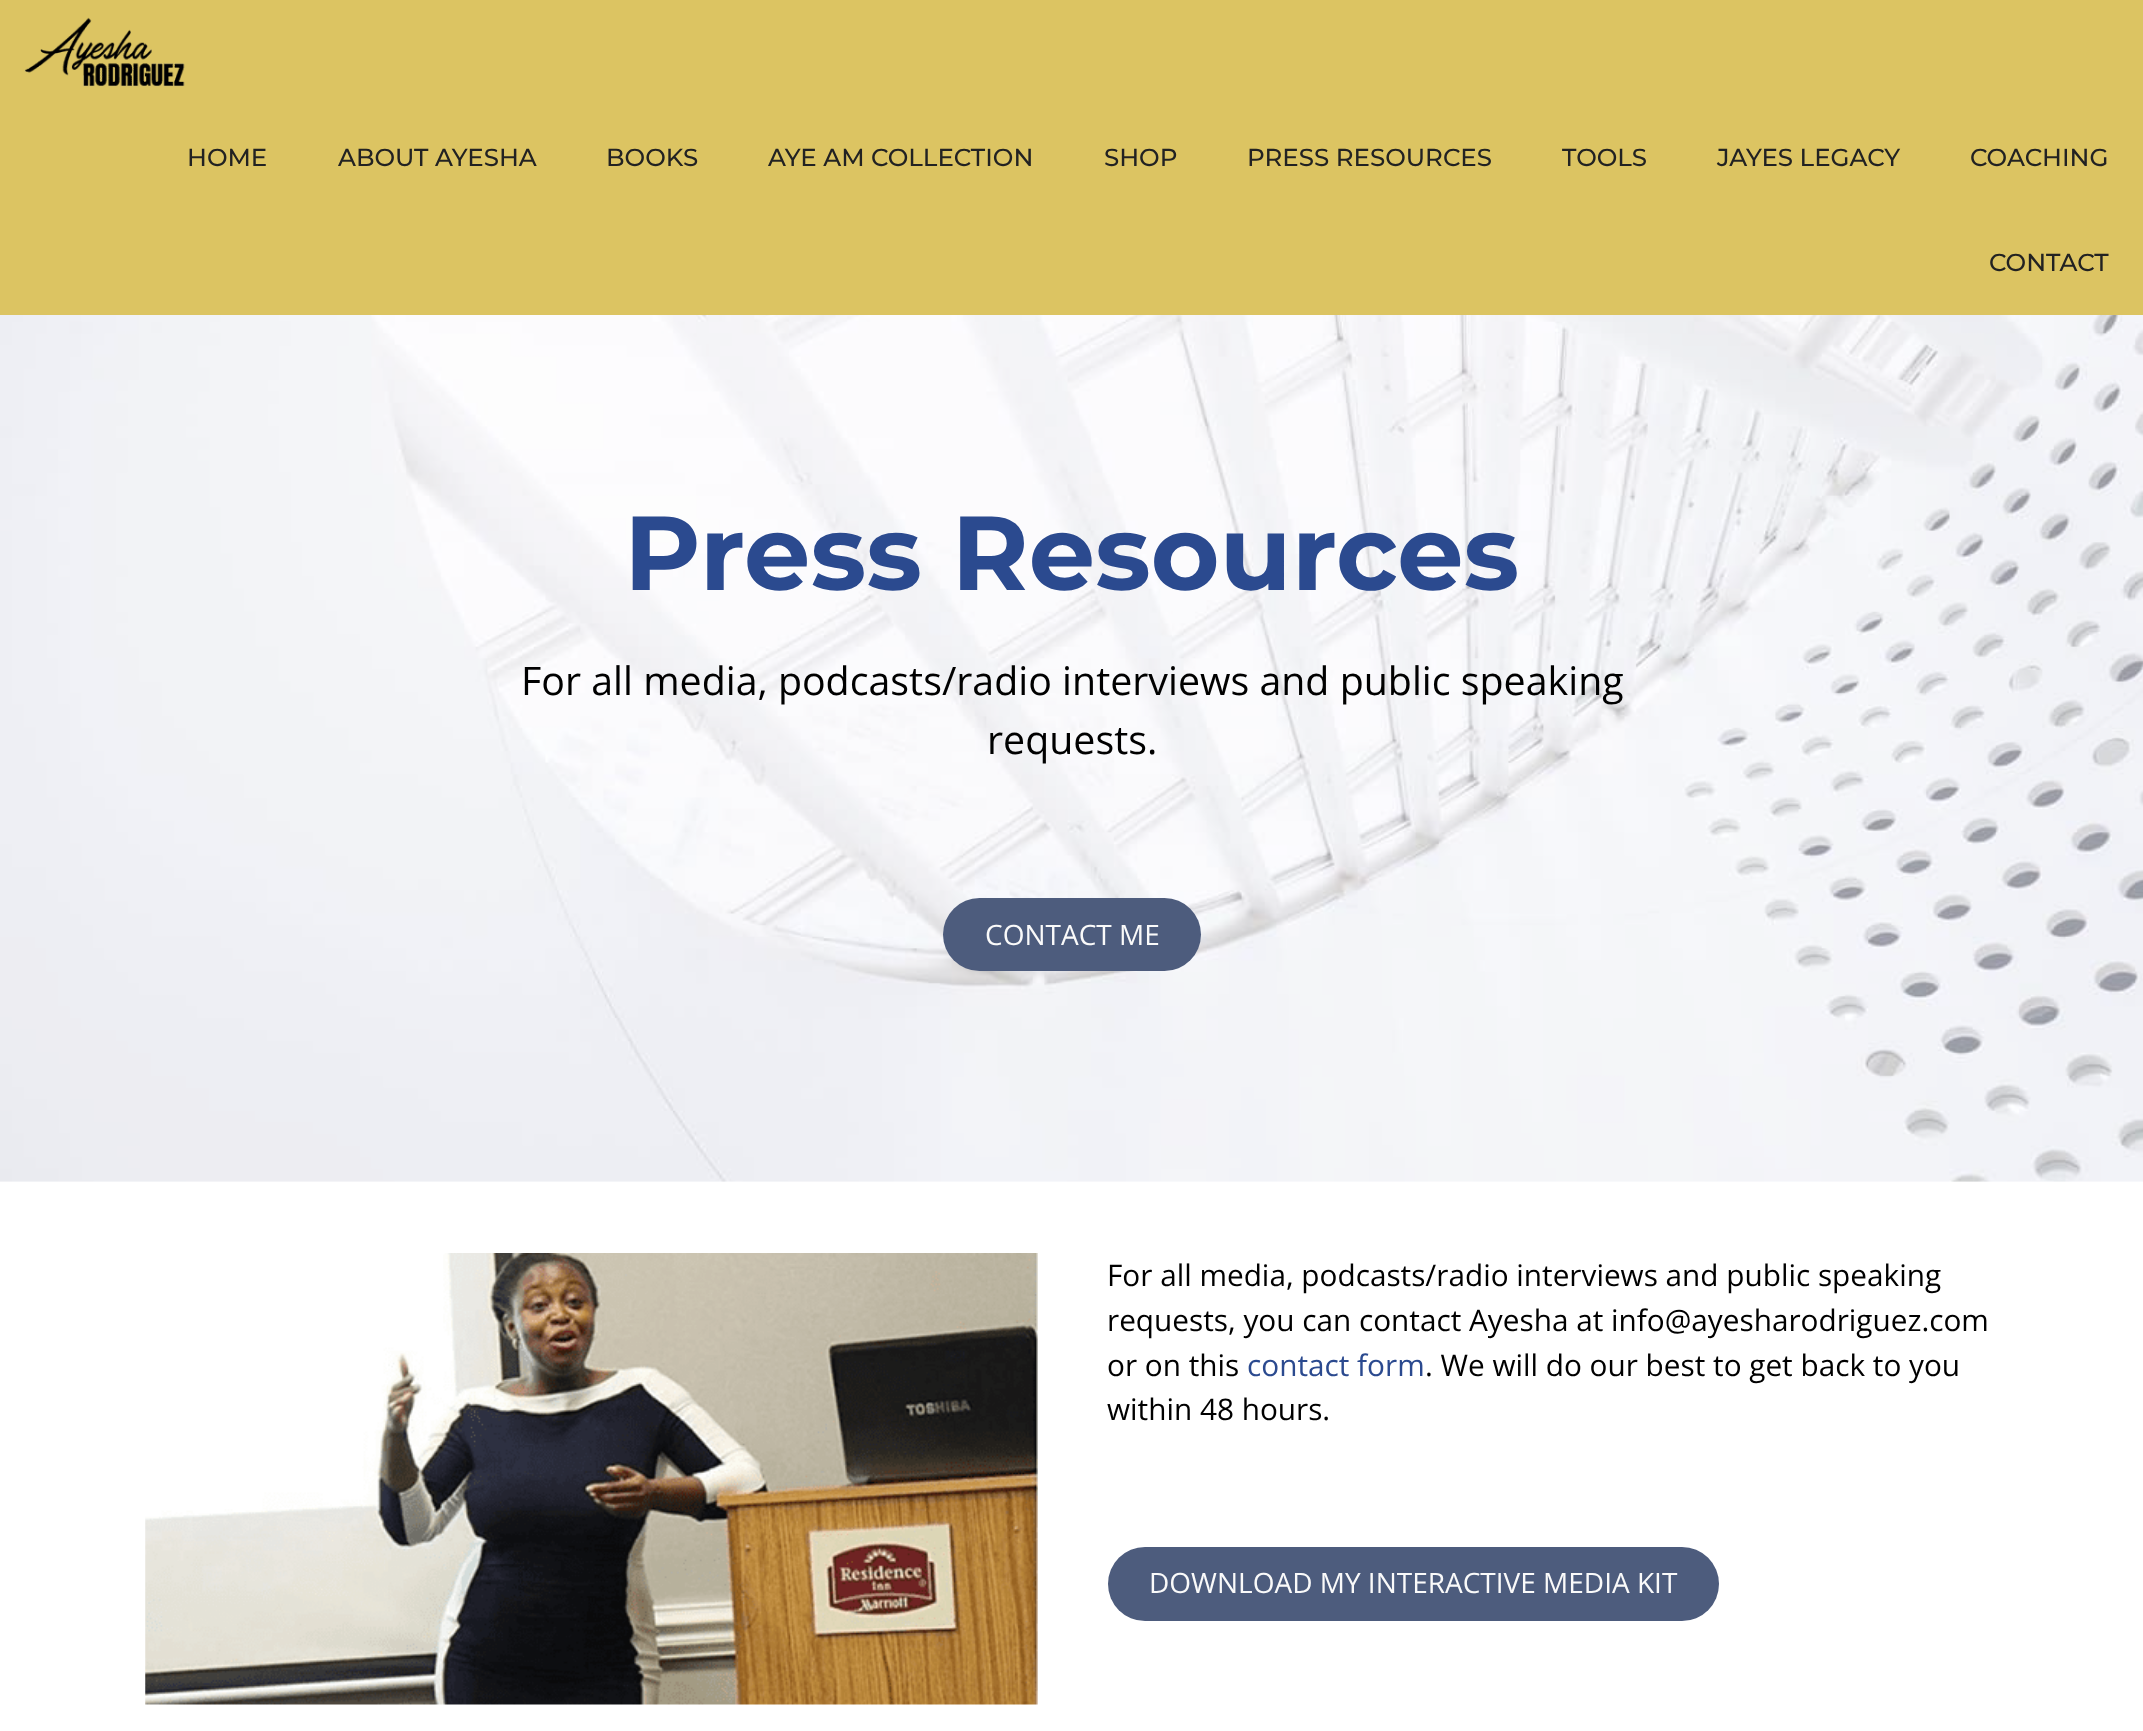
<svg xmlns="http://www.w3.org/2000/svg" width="2143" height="1731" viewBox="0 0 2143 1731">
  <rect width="100%" height="100%" fill="#dcc462"/>
  <image x="24" y="17" width="161" height="70" href="img1.png"/>
  <text x="187" y="166" font-family="Montserrat" font-size="24.5" font-weight="500" fill="#222222">HOME</text>
  <text x="338" y="166" font-family="Montserrat" font-size="24.5" font-weight="500" fill="#222222">ABOUT AYESHA</text>
  <text x="606" y="166" font-family="Montserrat" font-size="24.5" font-weight="500" fill="#222222">BOOKS</text>
  <text x="768" y="166" font-family="Montserrat" font-size="24.5" font-weight="500" fill="#222222">AYE AM COLLECTION</text>
  <text x="1104" y="166" font-family="Montserrat" font-size="24.5" font-weight="500" fill="#222222">SHOP</text>
  <text x="1247" y="166" font-family="Montserrat" font-size="24.5" font-weight="500" fill="#222222">PRESS RESOURCES</text>
  <text x="1562" y="166" font-family="Montserrat" font-size="24.5" font-weight="500" fill="#222222">TOOLS</text>
  <text x="1717" y="166" font-family="Montserrat" font-size="24.5" font-weight="500" fill="#222222">JAYES LEGACY</text>
  <text x="1970" y="166" font-family="Montserrat" font-size="24.5" font-weight="500" fill="#222222">COACHING</text>
  <text x="1989" y="271" font-family="Montserrat" font-size="24.5" font-weight="500" fill="#222222">CONTACT</text>
  <rect x="0" y="1181" width="2143" height="550" fill="#ffffff"/>
  <image x="0" y="315" width="2143" height="867" href="img2.png"/>
  <text x="624" y="590" font-family="Montserrat" font-size="105" font-weight="bold" fill="#2b4a8f">Press Resources</text>
  <text x="521" y="695" font-family="Open Sans" font-size="39.35" fill="#000000">For all media, podcasts/radio interviews and public speaking</text>
  <text x="987" y="754" font-family="Open Sans" font-size="39.35" fill="#000000">requests.</text>
  <rect x="943" y="898" width="258" height="73" rx="36.5" fill="#4d5c7d"/>
  <text x="985" y="945" font-family="Open Sans" font-size="28" fill="#fafafa">CONTACT ME</text>
  <image x="145" y="1253" width="893" height="452" href="img3.png"/>
  <text x="1107" y="1286" font-family="Open Sans" font-size="29.75" fill="#000000">For all media, podcasts/radio interviews and public speaking</text>
  <text x="1107" y="1331" font-family="Open Sans" font-size="29.75" fill="#000000">requests, you can contact Ayesha at info@ayesharodriguez.com</text>
  <text x="1107" y="1376" font-family="Open Sans" font-size="29.75" fill="#000000">or on this</text>
  <text x="1247" y="1376" font-family="Open Sans" font-size="29.75" fill="#2b4a8f">contact form</text>
  <text x="1425" y="1376" font-family="Open Sans" font-size="29.75" fill="#000000">. We will do our best to get back to you</text>
  <text x="1107" y="1420" font-family="Open Sans" font-size="29.75" fill="#000000">within 48 hours.</text>
  <rect x="1108" y="1547" width="611" height="74" rx="37" fill="#4d5c7d"/>
  <text x="1149" y="1593" font-family="Open Sans" font-size="28" fill="#fafafa">DOWNLOAD MY INTERACTIVE MEDIA KIT</text>
</svg>
